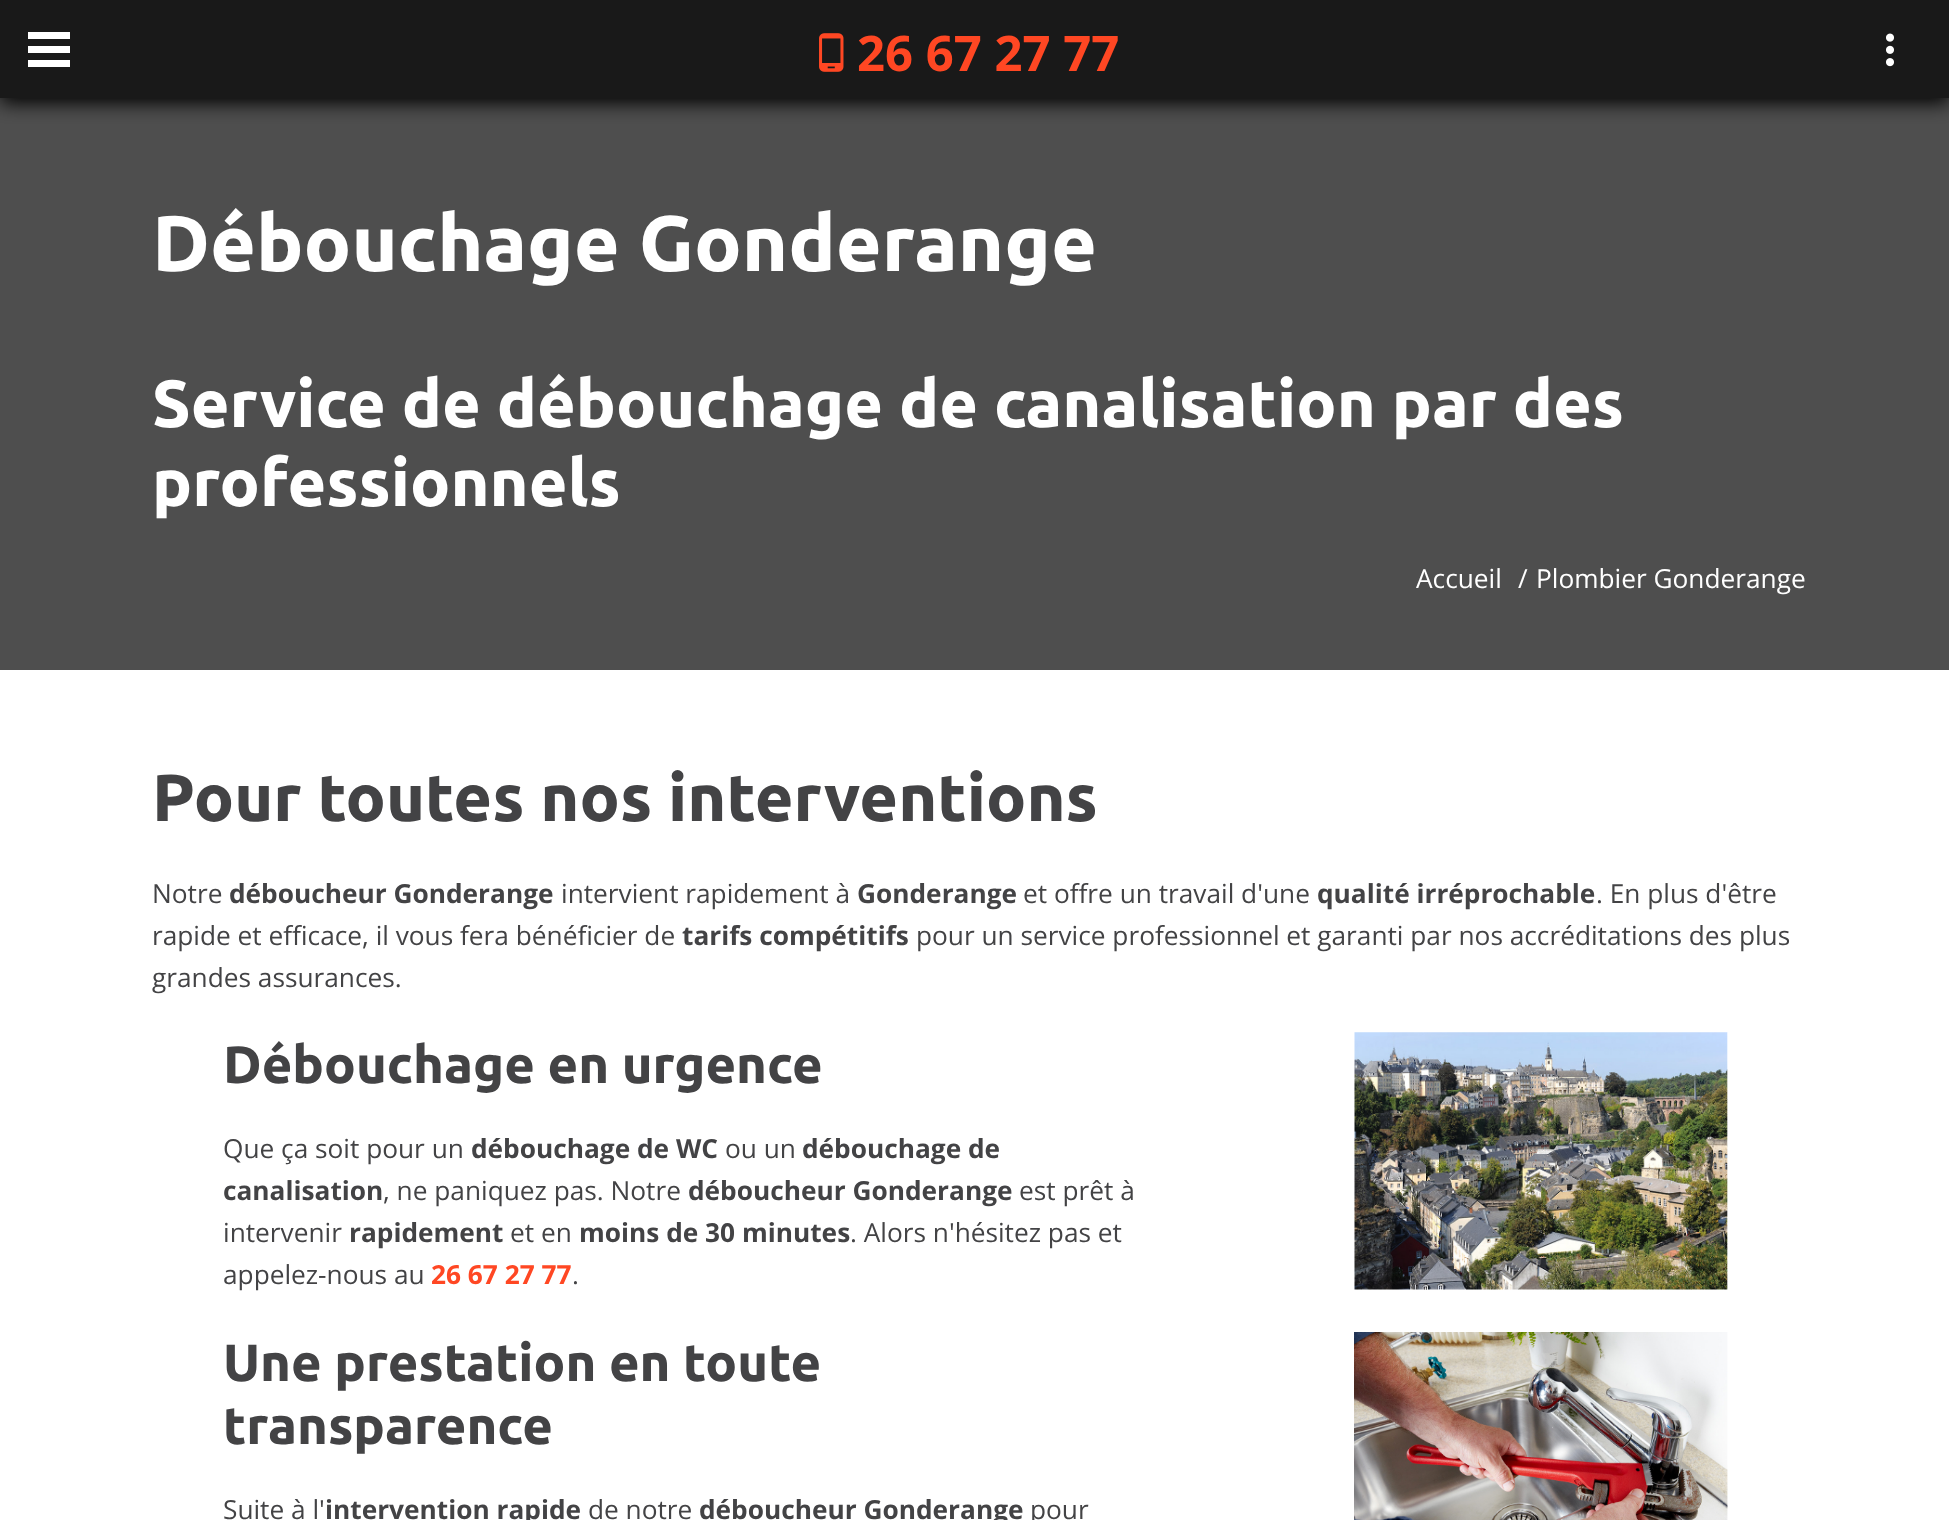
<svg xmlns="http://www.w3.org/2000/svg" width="1949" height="1520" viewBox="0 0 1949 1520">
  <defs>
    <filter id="blur1" x="-50%" y="-200%" width="200%" height="500%"><feGaussianBlur stdDeviation="9.5"/></filter>
  </defs>
  <rect width="100%" height="100%" fill="#ffffff"/>
  <rect x="0" y="98" width="1949" height="572" fill="#4e4e4e"/>
  <rect x="0" y="5" width="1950" height="98" fill="#000000" filter="url(#blur1)"/>
  <rect x="0" y="0" width="1949" height="98" fill="#191919"/>
  <rect x="28" y="46" width="42" height="7" fill="#ffffff"/>
  <rect x="28" y="32" width="42" height="7" fill="#ffffff"/>
  <rect x="28" y="60" width="42" height="7" fill="#ffffff"/>
  <image x="819" y="33" width="25" height="39" href="img1.png"/>
  <text x="857" y="71" font-family="Open Sans" font-size="49" font-weight="bold" fill="#ff4723">26 67 27 77</text>
  <image x="1886" y="33" width="8" height="34" href="img2.png"/>
  <text x="152" y="271" font-family="Ubuntu" font-size="78.75" font-weight="bold" fill="#ffffff">Débouchage Gonderange</text>
  <text x="152" y="427" font-family="Ubuntu" font-size="66.5" font-weight="bold" fill="#ffffff">Service de débouchage de canalisation par des</text>
  <text x="152" y="506" font-family="Ubuntu" font-size="66.5" font-weight="bold" fill="#ffffff">professionnels</text>
  <text x="1416" y="588" font-family="Open Sans" font-size="26.25" fill="#ffffff">Accueil</text>
  <text x="1518" y="588" font-family="Open Sans" font-size="26.25" fill="#ffffff">/</text>
  <text x="1536" y="588" font-family="Open Sans" font-size="26.25" fill="#ffffff">Plombier Gonderange</text>
  <text x="152" y="821" font-family="Ubuntu" font-size="66.5" font-weight="bold" fill="#434345">Pour toutes nos interventions</text>
  <text x="152" y="903" font-family="Open Sans" font-size="26.25" fill="#434345">Notre</text>
  <text x="229" y="903" font-family="Open Sans" font-size="26.25" font-weight="bold" fill="#434345">déboucheur Gonderange</text>
  <text x="561" y="903" font-family="Open Sans" font-size="26.25" fill="#434345">intervient rapidement à</text>
  <text x="857" y="903" font-family="Open Sans" font-size="26.25" font-weight="bold" fill="#434345">Gonderange</text>
  <text x="1023" y="903" font-family="Open Sans" font-size="26.25" fill="#434345">et offre un travail d'une</text>
  <text x="1317" y="903" font-family="Open Sans" font-size="26.25" font-weight="bold" fill="#434345">qualité irréprochable</text>
  <text x="1596" y="903" font-family="Open Sans" font-size="26.25" fill="#434345">. En plus d'être</text>
  <text x="152" y="945" font-family="Open Sans" font-size="26.25" fill="#434345">rapide et efficace, il vous fera bénéficier de</text>
  <text x="682" y="945" font-family="Open Sans" font-size="26.25" font-weight="bold" fill="#434345">tarifs compétitifs</text>
  <text x="916" y="945" font-family="Open Sans" font-size="26.25" fill="#434345">pour un service professionnel et garanti par nos accréditations des plus</text>
  <text x="152" y="987" font-family="Open Sans" font-size="26.25" fill="#434345">grandes assurances.</text>
  <text x="223" y="1083" font-family="Ubuntu" font-size="52.5" font-weight="bold" fill="#434345">Débouchage en urgence</text>
  <text x="223" y="1158" font-family="Open Sans" font-size="26.25" fill="#434345">Que ça soit pour un</text>
  <text x="471" y="1158" font-family="Open Sans" font-size="26.25" font-weight="bold" fill="#434345">débouchage de WC</text>
  <text x="725" y="1158" font-family="Open Sans" font-size="26.25" fill="#434345">ou un</text>
  <text x="802" y="1158" font-family="Open Sans" font-size="26.25" font-weight="bold" fill="#434345">débouchage de</text>
  <text x="223" y="1200" font-family="Open Sans" font-size="26.25" font-weight="bold" fill="#434345">canalisation</text>
  <text x="383" y="1200" font-family="Open Sans" font-size="26.25" fill="#434345">, ne paniquez pas. Notre</text>
  <text x="688" y="1200" font-family="Open Sans" font-size="26.25" font-weight="bold" fill="#434345">déboucheur Gonderange</text>
  <text x="1019" y="1200" font-family="Open Sans" font-size="26.25" fill="#434345">est prêt à</text>
  <text x="223" y="1242" font-family="Open Sans" font-size="26.25" fill="#434345">intervenir</text>
  <text x="349" y="1242" font-family="Open Sans" font-size="26.25" font-weight="bold" fill="#434345">rapidement</text>
  <text x="510" y="1242" font-family="Open Sans" font-size="26.25" fill="#434345">et en</text>
  <text x="579" y="1242" font-family="Open Sans" font-size="26.25" font-weight="bold" fill="#434345">moins de 30 minutes</text>
  <text x="850" y="1242" font-family="Open Sans" font-size="26.25" fill="#434345">. Alors n'hésitez pas et</text>
  <text x="223" y="1284" font-family="Open Sans" font-size="26.25" fill="#434345">appelez-nous au</text>
  <text x="431" y="1284" font-family="Open Sans" font-size="26.25" font-weight="bold" fill="#ff4723">26 67 27 77</text>
  <text x="572" y="1284" font-family="Open Sans" font-size="26.25" fill="#434345">.</text>
  <text x="223" y="1381" font-family="Ubuntu" font-size="52.5" font-weight="bold" fill="#434345">Une prestation en toute</text>
  <text x="223" y="1444" font-family="Ubuntu" font-size="52.5" font-weight="bold" fill="#434345">transparence</text>
  <text x="223" y="1519" font-family="Open Sans" font-size="26.25" fill="#434345">Suite à l'</text>
  <text x="325" y="1519" font-family="Open Sans" font-size="26.25" font-weight="bold" fill="#434345">intervention rapide</text>
  <text x="588" y="1519" font-family="Open Sans" font-size="26.25" fill="#434345">de notre</text>
  <text x="699" y="1519" font-family="Open Sans" font-size="26.25" font-weight="bold" fill="#434345">déboucheur Gonderange</text>
  <text x="1030" y="1519" font-family="Open Sans" font-size="26.25" fill="#434345">pour</text>
  <image x="1354" y="1032" width="374" height="258" href="img3.png"/>
  <image x="1354" y="1332" width="374" height="188" href="img4.png"/>
</svg>
